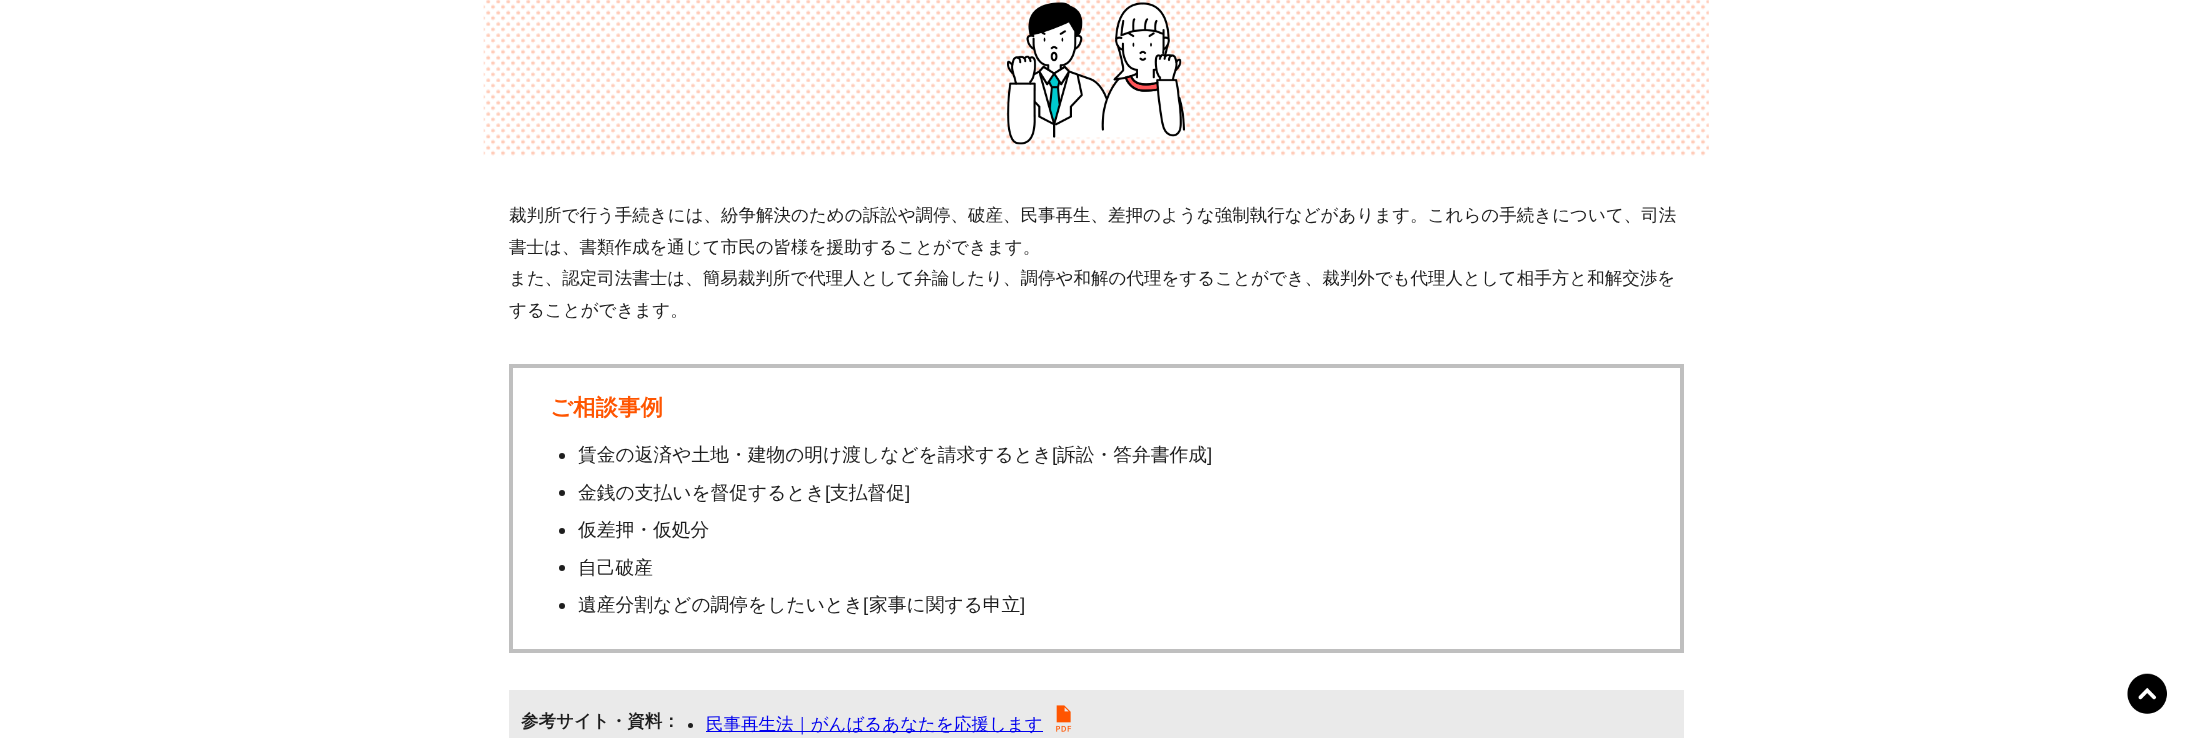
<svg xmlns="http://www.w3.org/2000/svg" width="2192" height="738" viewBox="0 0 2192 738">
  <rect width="100%" height="100%" fill="#ffffff"/>
  <image x="483" y="0" width="1226" height="156" href="img1.png"/>
  <image x="1007" y="2" width="178" height="143" href="img2.png"/>
  <text x="509" y="221" font-family="WenQuanYi Zen Hei" font-size="17.5" font-weight="500" fill="#1e1e1e">裁判所で行う手続きには、紛争解決のための訴訟や調停、破産、民事再生、差押のような強制執行などがあります。これらの手続きについて、司法</text>
  <text x="509" y="253" font-family="WenQuanYi Zen Hei" font-size="17.5" font-weight="500" fill="#1e1e1e">書士は、書類作成を通じて市民の皆様を援助することができます。</text>
  <text x="509" y="284" font-family="WenQuanYi Zen Hei" font-size="17.5" font-weight="500" fill="#1e1e1e">また、認定司法書士は、簡易裁判所で代理人として弁論したり、調停や和解の代理をすることができ、裁判外でも代理人として相手方と和解交渉を</text>
  <text x="509" y="316" font-family="WenQuanYi Zen Hei" font-size="17.5" font-weight="500" fill="#1e1e1e">することができます。</text>
  <rect x="511" y="366" width="1171" height="285" fill="none" stroke="#bfbfbf" stroke-width="4"/>
  <text x="550" y="415" font-family="WenQuanYi Zen Hei" font-size="22.5" font-weight="bold" fill="#ff5500">ご相談事例</text>
  <circle cx="562" cy="456" r="3" fill="#1e1e1e"/>
  <text x="578" y="461" font-family="WenQuanYi Zen Hei" font-size="18.75" font-weight="500" fill="#1e1e1e">賃金の返済や土地・建物の明け渡しなどを請求するとき</text>
  <text x="1052" y="461" font-family="Liberation Sans" font-size="18.75" fill="#1e1e1e">[</text>
  <text x="1057" y="461" font-family="WenQuanYi Zen Hei" font-size="18.75" font-weight="500" fill="#1e1e1e">訴訟・答弁書作成</text>
  <text x="1207" y="461" font-family="Liberation Sans" font-size="18.75" fill="#1e1e1e">]</text>
  <circle cx="562" cy="493" r="3" fill="#1e1e1e"/>
  <text x="578" y="499" font-family="WenQuanYi Zen Hei" font-size="18.75" font-weight="500" fill="#1e1e1e">金銭の支払いを督促するとき</text>
  <text x="825" y="499" font-family="Liberation Sans" font-size="18.75" fill="#1e1e1e">[</text>
  <text x="830" y="499" font-family="WenQuanYi Zen Hei" font-size="18.75" font-weight="500" fill="#1e1e1e">支払督促</text>
  <text x="905" y="499" font-family="Liberation Sans" font-size="18.75" fill="#1e1e1e">]</text>
  <circle cx="562" cy="531" r="3" fill="#1e1e1e"/>
  <text x="578" y="536" font-family="WenQuanYi Zen Hei" font-size="18.75" font-weight="500" fill="#1e1e1e">仮差押・仮処分</text>
  <circle cx="562" cy="568" r="3" fill="#1e1e1e"/>
  <text x="578" y="574" font-family="WenQuanYi Zen Hei" font-size="18.75" font-weight="500" fill="#1e1e1e">自己破産</text>
  <circle cx="562" cy="606" r="3" fill="#1e1e1e"/>
  <text x="578" y="611" font-family="WenQuanYi Zen Hei" font-size="18.75" font-weight="500" fill="#1e1e1e">遺産分割などの調停をしたいとき</text>
  <text x="863" y="611" font-family="Liberation Sans" font-size="18.75" fill="#1e1e1e">[</text>
  <text x="869" y="611" font-family="WenQuanYi Zen Hei" font-size="18.75" font-weight="500" fill="#1e1e1e">家事に関する申立</text>
  <text x="1020" y="611" font-family="Liberation Sans" font-size="18.75" fill="#1e1e1e">]</text>
  <rect x="509" y="690" width="1175" height="48" fill="#eaeaea"/>
  <text x="521" y="727" font-family="WenQuanYi Zen Hei" font-size="17.5" font-weight="bold" fill="#1e1e1e">参考サイト・資料：</text>
  <circle cx="690.5" cy="725.5" r="2.5" fill="#1e1e1e"/>
  <rect x="706" y="731" width="337" height="1" fill="#0000ee"/>
  <text x="706" y="730" font-family="WenQuanYi Zen Hei" font-size="17.5" font-weight="500" fill="#0000ee">民事再生法｜がんばるあなたを応援します</text>
  <image x="1056" y="705" width="16" height="27" href="img3.png"/>
  <image x="2127" y="673" width="40" height="41" href="img4.png"/>
</svg>
